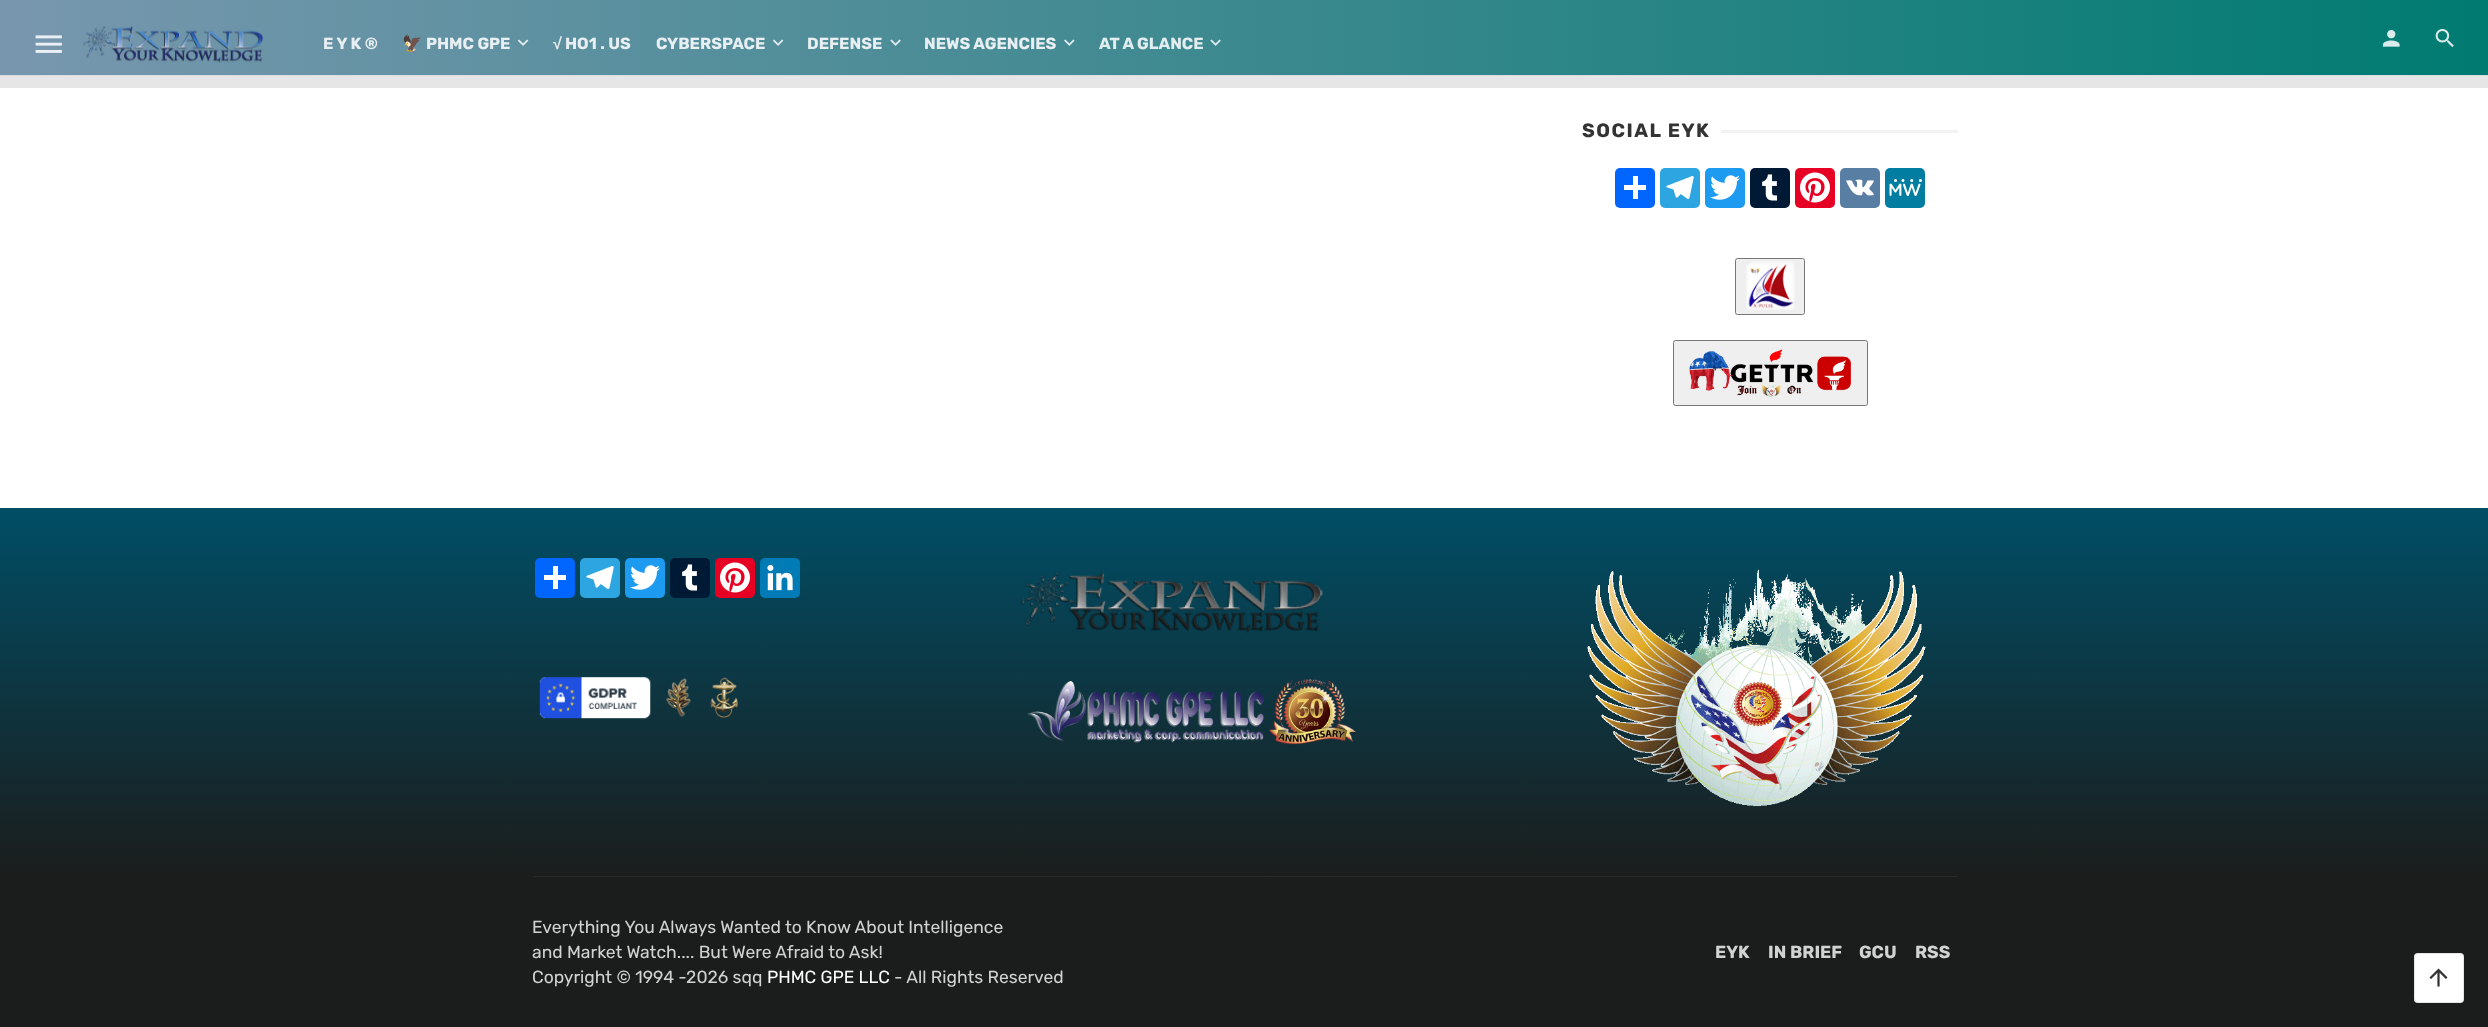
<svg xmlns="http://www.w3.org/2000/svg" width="2488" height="1027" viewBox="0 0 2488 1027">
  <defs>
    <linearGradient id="g1" gradientUnits="userSpaceOnUse" x1="0" y1="38" x2="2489" y2="37"><stop offset="0" stop-color="#7897ae"/><stop offset="1" stop-color="#007b71"/></linearGradient>
    <linearGradient id="g2" gradientUnits="userSpaceOnUse" x1="1244" y1="507" x2="1244" y2="876"><stop offset="0" stop-color="#004e66"/><stop offset="1" stop-color="#1b1d1c"/></linearGradient>
  </defs>
  <rect width="100%" height="100%" fill="#ffffff"/>
  <rect x="0" y="76" width="2488" height="12" fill="#e6e6e6"/>
  <path d="M0 75V76H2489V1V75Z" fill="#dddddd"/>
  <rect x="0" y="0" width="2488" height="75" fill="url(#g1)"/>
  <image x="35" y="35" width="27" height="18" href="img1.png"/>
  <image x="83" y="26" width="181" height="37" href="img2.png"/>
  <text x="323" y="49" font-family="Rubik" font-size="16.25" font-weight="bold" fill="#e8eff2">E Y K ®</text>
  <text x="402" y="49" font-family="Noto Color Emoji" font-size="16.25" font-weight="bold" fill="#e8eff2">🦅</text>
  <text x="426" y="49" font-family="Rubik" font-size="16.25" font-weight="bold" fill="#e8eff2">PHMC GPE</text>
  <image x="517" y="39" width="12" height="7" href="img3.png"/>
  <text x="553" y="49" font-family="Liberation Sans" font-size="16.25" font-weight="bold" fill="#e8eff2">√</text>
  <text x="565" y="49" font-family="Rubik" font-size="16.25" font-weight="bold" fill="#e8eff2">HO1 . US</text>
  <text x="656" y="49" font-family="Rubik" font-size="16.25" font-weight="bold" fill="#e8eff2">CYBERSPACE</text>
  <image x="772" y="39" width="12" height="7" href="img4.png"/>
  <text x="807" y="49" font-family="Rubik" font-size="16.25" font-weight="bold" fill="#e8eff2">DEFENSE</text>
  <image x="890" y="39" width="11" height="7" href="img5.png"/>
  <text x="924" y="49" font-family="Rubik" font-size="16.25" font-weight="bold" fill="#e8eff2">NEWS AGENCIES</text>
  <image x="1064" y="39" width="11" height="7" href="img6.png"/>
  <text x="1099" y="49" font-family="Rubik" font-size="16.25" font-weight="bold" fill="#e2edef">AT A GLANCE</text>
  <image x="1210" y="39" width="11" height="7" href="img7.png"/>
  <image x="2382" y="30" width="18" height="17" href="img8.png"/>
  <image x="2435" y="29" width="19" height="19" href="img9.png"/>
  <text x="1582" y="137" font-family="Rubik" font-size="19.25" font-weight="bold" letter-spacing="1.5" fill="#333333">SOCIAL EYK</text>
  <rect x="1721" y="130" width="237" height="3" fill="#f2f2f2"/>
  <rect x="1615" y="168" width="40" height="40" rx="5" fill="#0166ff"/>
  <rect x="1633" y="176" width="5" height="23" fill="#ffffff"/>
  <rect x="1624" y="185" width="22" height="5" fill="#ffffff"/>
  <rect x="1660" y="168" width="40" height="40" rx="5" fill="#2ca5e0"/>
  <image x="1666" y="176" width="28" height="23" href="img10.png"/>
  <rect x="1705" y="168" width="40" height="40" rx="5" fill="#1d9bf0"/>
  <image x="1710" y="175" width="30" height="25" href="img11.png"/>
  <rect x="1750" y="168" width="40" height="40" rx="5" fill="#001935"/>
  <image x="1762" y="174" width="16" height="27" href="img12.png"/>
  <rect x="1795" y="168" width="40" height="40" rx="5" fill="#e60023"/>
  <image x="1800" y="172" width="30" height="31" href="img13.png"/>
  <rect x="1840" y="168" width="40" height="40" rx="5" fill="#587ea3"/>
  <image x="1846" y="179" width="28" height="17" href="img14.png"/>
  <rect x="1885" y="168" width="40" height="40" rx="5" fill="#007da1"/>
  <image x="1889" y="179" width="33" height="17" href="img15.png"/>
  <rect x="1735.5" y="258.5" width="69" height="56" rx="2" fill="#efefef" stroke="#767676"/>
  <image x="1746" y="261" width="49" height="49" href="img16.png"/>
  <rect x="1673.5" y="340.5" width="194" height="65" rx="2" fill="#efefef" stroke="#767676"/>
  <image x="1689" y="349" width="162" height="49" href="img17.png"/>
  <rect x="0" y="876" width="2488" height="151" fill="#1b1d1c"/>
  <rect x="0" y="508" width="2488" height="368" fill="url(#g2)"/>
  <rect x="535" y="558" width="40" height="40" rx="5" fill="#0166ff"/>
  <rect x="553" y="566" width="5" height="23" fill="#ffffff"/>
  <rect x="544" y="575" width="22" height="5" fill="#ffffff"/>
  <rect x="580" y="558" width="40" height="40" rx="5" fill="#2ca5e0"/>
  <image x="586" y="566" width="28" height="23" href="img10.png"/>
  <rect x="625" y="558" width="40" height="40" rx="5" fill="#1d9bf0"/>
  <image x="630" y="565" width="30" height="25" href="img11.png"/>
  <rect x="670" y="558" width="40" height="40" rx="5" fill="#001935"/>
  <image x="682" y="564" width="16" height="27" href="img12.png"/>
  <rect x="715" y="558" width="40" height="40" rx="5" fill="#e60023"/>
  <image x="720" y="562" width="30" height="31" href="img13.png"/>
  <rect x="760" y="558" width="40" height="40" rx="5" fill="#007bb5"/>
  <image x="767" y="564" width="26" height="27" href="img18.png"/>
  <image x="539" y="677" width="112" height="42" href="img19.png"/>
  <image x="666" y="678" width="25" height="39" href="img20.png"/>
  <image x="710" y="677" width="28" height="41" href="img21.png"/>
  <image x="1020" y="572" width="303" height="61" href="img22.png"/>
  <image x="1027" y="679" width="329" height="66" href="img23.png"/>
  <image x="1587" y="569" width="339" height="238" href="img24.png"/>
  <rect x="533" y="876" width="1425" height="1" fill="#292b2a"/>
  <text x="532" y="933" font-family="Rubik" font-size="17.5" fill="#d1d2d2">Everything You Always Wanted to Know About Intelligence</text>
  <text x="532" y="958" font-family="Rubik" font-size="17.5" fill="#d1d2d2">and Market Watch.... But Were Afraid to Ask!</text>
  <text x="532" y="983" font-family="Rubik" font-size="17.5" fill="#d1d2d2">Copyright © 1994 -2026 sqq</text>
  <text x="767" y="983" font-family="Rubik" font-size="17.5" fill="#ffffff">PHMC GPE LLC</text>
  <text x="894" y="983" font-family="Rubik" font-size="17.5" fill="#d1d2d2">- All Rights Reserved</text>
  <text x="1715" y="958" font-family="Rubik" font-size="17.5" font-weight="bold" fill="#d1d2d2">EYK</text>
  <text x="1768" y="958" font-family="Rubik" font-size="17.5" font-weight="bold" fill="#d1d2d2">IN BRIEF</text>
  <text x="1859" y="958" font-family="Rubik" font-size="17.5" font-weight="bold" fill="#d1d2d2">GCU</text>
  <text x="1915" y="958" font-family="Rubik" font-size="17.5" font-weight="bold" fill="#d1d2d2">RSS</text>
  <rect x="2414" y="953" width="50" height="50" rx="4" fill="#ffffff"/>
  <rect x="2414.5" y="953.5" width="49" height="49" rx="3.5" fill="none" stroke="#000000" stroke-opacity="0.1"/>
  <image x="2429" y="968" width="19" height="19" href="img25.png"/>
</svg>
